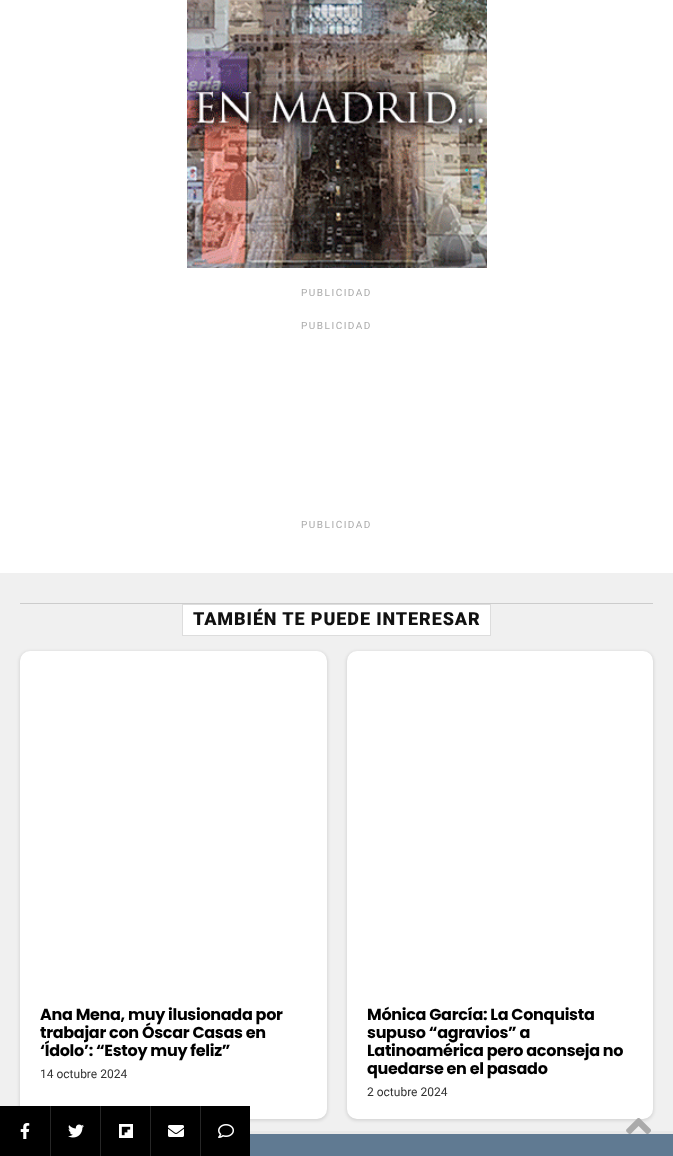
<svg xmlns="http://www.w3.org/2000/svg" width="673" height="1156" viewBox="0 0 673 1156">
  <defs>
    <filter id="blur1" x="-50%" y="-200%" width="200%" height="500%"><feGaussianBlur stdDeviation="1.5"/></filter>
  </defs>
  <rect width="100%" height="100%" fill="#f0f0f0"/>
  <rect x="0" y="0" width="673" height="573" fill="#ffffff"/>
  <image x="187" y="0" width="300" height="268" href="img1.png"/>
  <text x="301" y="296" font-family="Roboto" font-size="10" letter-spacing="1.5" fill="#aaaaaa">PUBLICIDAD</text>
  <text x="301" y="329" font-family="Roboto" font-size="10" letter-spacing="1.5" fill="#aaaaaa">PUBLICIDAD</text>
  <text x="301" y="528" font-family="Roboto" font-size="10" letter-spacing="1.5" fill="#aaaaaa">PUBLICIDAD</text>
  <rect x="19" y="651" width="309" height="470" rx="11" fill="#000000" fill-opacity="0.1" filter="url(#blur1)"/>
  <rect x="20" y="651" width="307" height="468" rx="10" fill="#ffffff"/>
  <rect x="0" y="1106" width="50" height="50" fill="#000000"/>
  <image x="20" y="1123" width="10" height="16" href="img2.png"/>
  <rect x="51" y="1106" width="49" height="50" fill="#000000"/>
  <rect x="50" y="1106" width="1" height="50" fill="#262626"/>
  <image x="68" y="1124" width="16" height="14" href="img3.png"/>
  <rect x="101" y="1106" width="49" height="50" fill="#000000"/>
  <rect x="100" y="1106" width="1" height="50" fill="#262626"/>
  <image x="119" y="1124" width="14" height="14" href="img4.png"/>
  <rect x="151" y="1106" width="49" height="50" fill="#000000"/>
  <rect x="150" y="1106" width="1" height="50" fill="#262626"/>
  <image x="168" y="1125" width="16" height="12" href="img5.png"/>
  <rect x="201" y="1106" width="49" height="50" fill="#000000"/>
  <rect x="200" y="1106" width="1" height="50" fill="#262626"/>
  <image x="218" y="1124" width="16" height="14" href="img6.png"/>
  <rect x="20" y="603" width="633" height="1" fill="#cccccc"/>
  <rect x="182.5" y="604.5" width="308" height="31" fill="#ffffff" stroke="#dddddd"/>
  <text x="193" y="625" font-family="Roboto" font-size="18" font-weight="900" letter-spacing="0.9" fill="#111111">TAMBIÉN TE PUEDE INTERESAR</text>
  <text x="40" y="1020" font-family="Poppins" font-size="16" font-weight="bold" letter-spacing="-0.3" fill="#000000">Ana Mena, muy ilusionada por</text>
  <text x="40" y="1038" font-family="Poppins" font-size="16" font-weight="bold" letter-spacing="-0.3" fill="#000000">trabajar con Óscar Casas en</text>
  <text x="40" y="1056" font-family="Poppins" font-size="16" font-weight="bold" letter-spacing="-0.3" fill="#000000">‘Ídolo’: “Estoy muy feliz”</text>
  <text x="40" y="1078" font-family="Roboto" font-size="12" fill="#333333">14 octubre 2024</text>
  <rect x="346" y="651" width="308" height="470" rx="11" fill="#000000" fill-opacity="0.1" filter="url(#blur1)"/>
  <rect x="347" y="651" width="306" height="468" rx="10" fill="#ffffff"/>
  <text x="367" y="1020" font-family="Poppins" font-size="16" font-weight="bold" letter-spacing="-0.3" fill="#000000">Mónica García: La Conquista</text>
  <text x="367" y="1038" font-family="Poppins" font-size="16" font-weight="bold" letter-spacing="-0.3" fill="#000000">supuso “agravios” a</text>
  <text x="367" y="1056" font-family="Poppins" font-size="16" font-weight="bold" letter-spacing="-0.3" fill="#000000">Latinoamérica pero aconseja no</text>
  <text x="367" y="1074" font-family="Poppins" font-size="16" font-weight="bold" letter-spacing="-0.3" fill="#000000">quedarse en el pasado</text>
  <text x="367" y="1096" font-family="Roboto" font-size="12" fill="#333333">2 octubre 2024</text>
  <rect x="250" y="1134" width="423" height="22" fill="#607a92"/>
  <rect x="250" y="1131" width="423" height="3" fill="#e9e9e9"/>
  <image x="626" y="1118" width="25" height="16" href="img7.png"/>
</svg>
